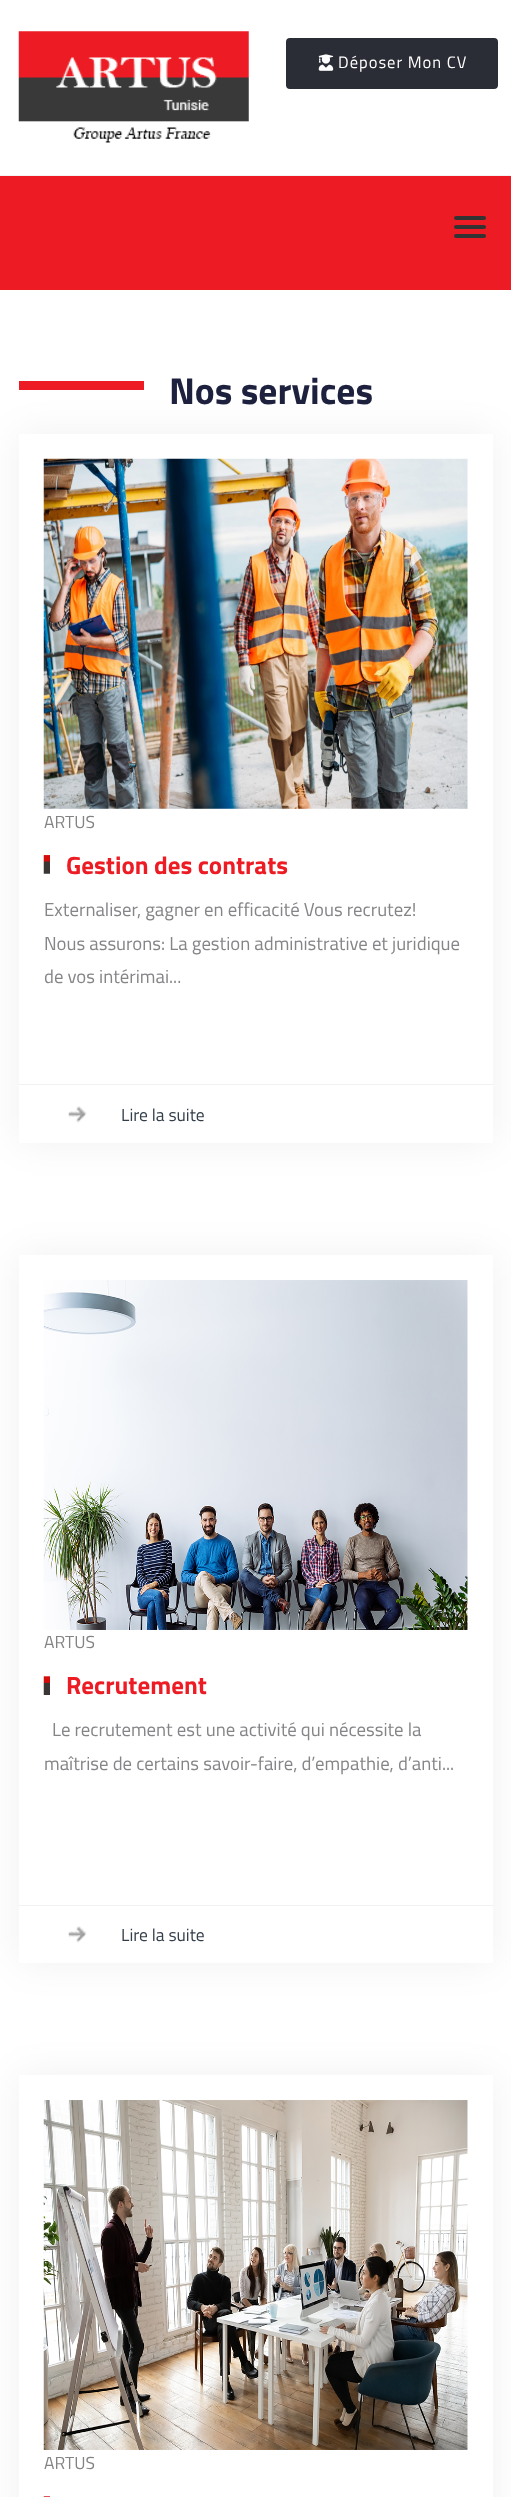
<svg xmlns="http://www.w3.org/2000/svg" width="511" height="2497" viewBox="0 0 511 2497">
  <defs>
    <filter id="blur1" x="-50%" y="-200%" width="200%" height="500%"><feGaussianBlur stdDeviation="19"/></filter>
  </defs>
  <rect width="100%" height="100%" fill="#ffffff"/>
  <rect x="0" y="175" width="511" height="1" fill="#f3f3f3"/>
  <image x="18" y="31" width="231" height="112" href="img1.png"/>
  <rect x="288" y="40" width="208" height="47" rx="2" fill="#2a2d35" stroke="#2a2d35" stroke-width="4"/>
  <image x="318" y="54" width="16" height="17" href="img2.png"/>
  <text x="338" y="68" font-family="Titillium Web" font-size="16.5" letter-spacing="1" fill="#ffffff">Déposer Mon CV</text>
  <rect x="0" y="176" width="511" height="114" fill="#ed1c24"/>
  <rect x="454" y="216" width="32" height="4" rx="2" fill="#333333"/>
  <rect x="454" y="225" width="32" height="4" rx="2" fill="#333333"/>
  <rect x="454" y="234" width="32" height="4" rx="2" fill="#333333"/>
  <rect x="19" y="381" width="125" height="9" fill="#ed1c24"/>
  <text x="169" y="404" font-family="Titillium Web" font-size="37.5" font-weight="bold" fill="#1d213e">Nos services</text>
  <rect x="19" y="434" width="474" height="709" fill="#000000" fill-opacity="0.06" filter="url(#blur1)"/>
  <rect x="19" y="434" width="474" height="709" fill="#ffffff"/>
  <image x="43" y="458" width="425" height="351" href="img3.png"/>
  <text x="44" y="828" font-family="Titillium Web" font-size="17.5" fill="#838383">ARTUS</text>
  <image x="43" y="855" width="7" height="19" href="img4.png"/>
  <text x="66" y="874" font-family="Titillium Web" font-size="25" font-weight="bold" fill="#ed1c24">Gestion des contrats</text>
  <text x="44" y="916" font-family="Titillium Web" font-size="18.75" fill="#858589">Externaliser, gagner en efficacité Vous recrutez!</text>
  <text x="44" y="950" font-family="Titillium Web" font-size="18.75" fill="#858589">Nous assurons: La gestion administrative et juridique</text>
  <text x="44" y="983" font-family="Titillium Web" font-size="18.75" fill="#858589">de vos intérimai...</text>
  <image x="68" y="1106" width="19" height="17" href="img5.png"/>
  <rect x="19" y="1084" width="474" height="1" fill="#f1f1f1"/>
  <text x="121" y="1121" font-family="Titillium Web" font-size="17.5" fill="#333e49">Lire la suite</text>
  <rect x="19" y="1255" width="474" height="708" fill="#000000" fill-opacity="0.06" filter="url(#blur1)"/>
  <rect x="19" y="1255" width="474" height="708" fill="#ffffff"/>
  <image x="43" y="1280" width="425" height="350" href="img6.png"/>
  <text x="44" y="1648" font-family="Titillium Web" font-size="17.5" fill="#838383">ARTUS</text>
  <image x="43" y="1676" width="7" height="19" href="img7.png"/>
  <text x="66" y="1694" font-family="Titillium Web" font-size="25" font-weight="bold" fill="#ed1c24">Recrutement</text>
  <text x="52" y="1736" font-family="Titillium Web" font-size="18.75" fill="#858589">Le recrutement est une activité qui nécessite la</text>
  <text x="44" y="1770" font-family="Titillium Web" font-size="18.75" fill="#858589">maîtrise de certains savoir-faire, d’empathie, d’anti...</text>
  <image x="68" y="1926" width="19" height="17" href="img5.png"/>
  <rect x="19" y="1905" width="474" height="1" fill="#f1f1f1"/>
  <text x="121" y="1941" font-family="Titillium Web" font-size="17.5" fill="#333e49">Lire la suite</text>
  <rect x="19" y="2075" width="474" height="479" fill="#000000" fill-opacity="0.06" filter="url(#blur1)"/>
  <rect x="19" y="2075" width="474" height="422" fill="#ffffff"/>
  <image x="43" y="2100" width="425" height="350" href="img8.png"/>
  <text x="44" y="2469" font-family="Titillium Web" font-size="17.5" fill="#838383">ARTUS</text>
  <image x="43" y="2496" width="7" height="1" href="img9.png"/>
</svg>
